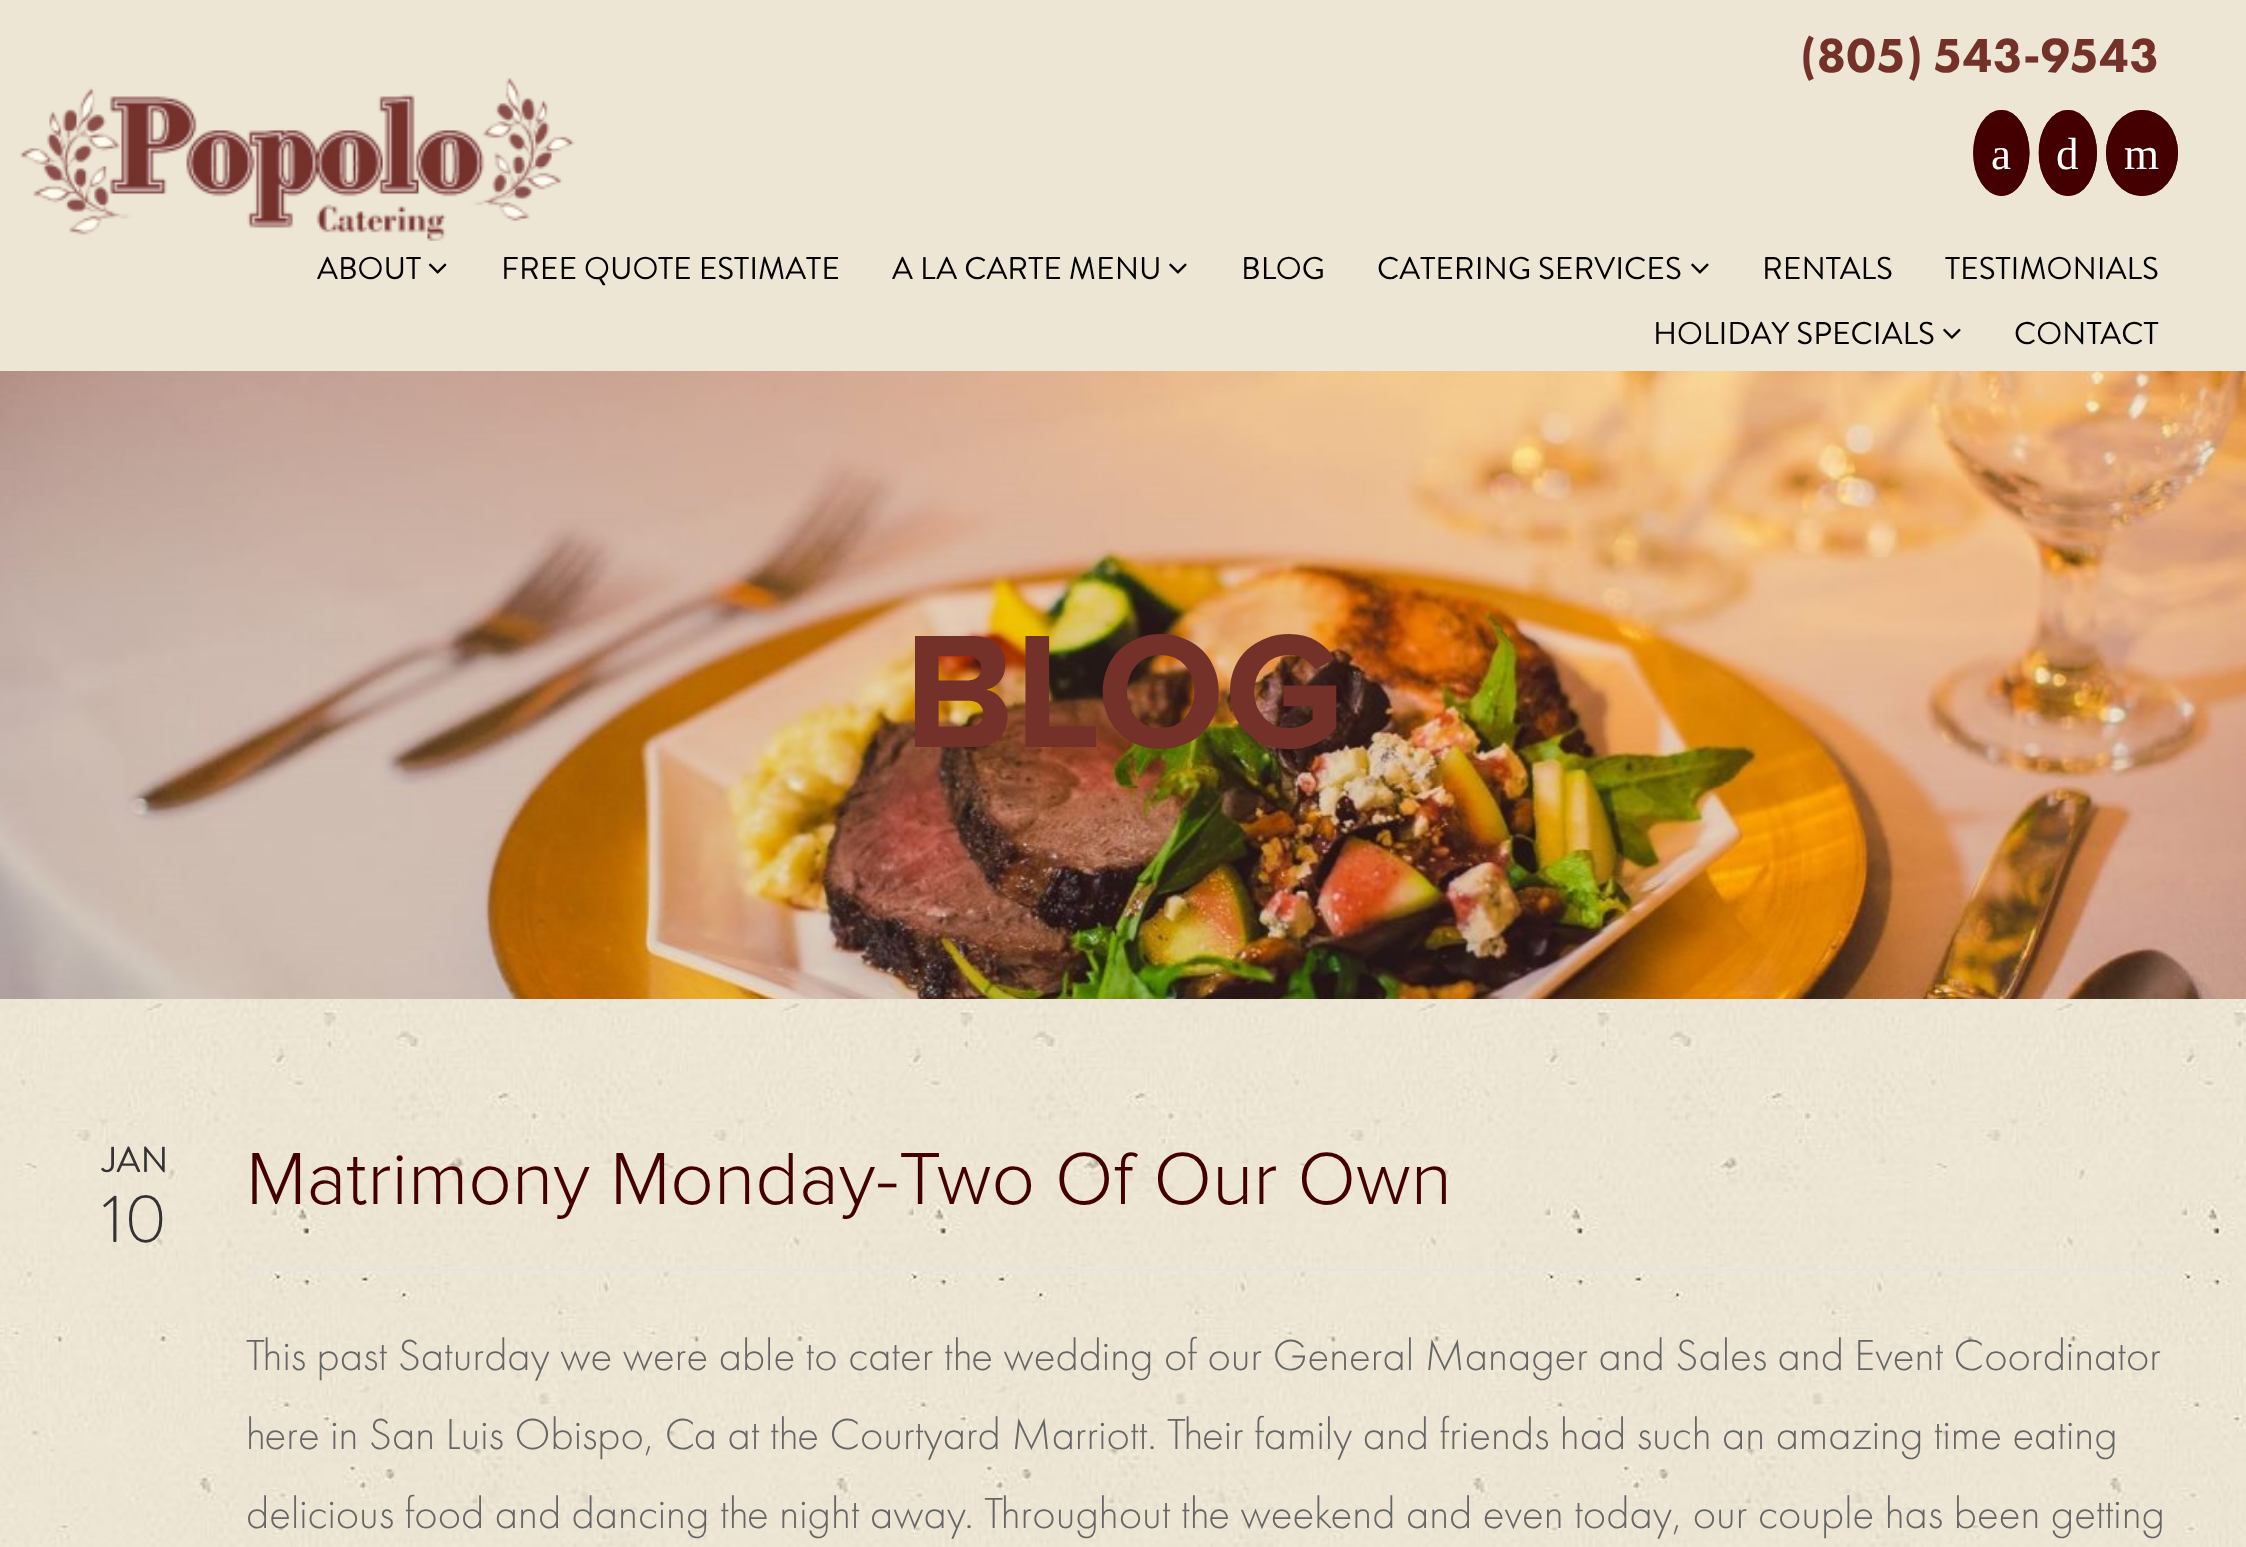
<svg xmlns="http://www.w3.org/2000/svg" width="2246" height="1547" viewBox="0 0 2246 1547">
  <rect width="100%" height="100%" fill="#ede6d4"/>
  <image x="20" y="77" width="555" height="164" href="img1.png"/>
  <text x="1800" y="72" word-spacing="-1" font-family="Futura PT" font-size="49.5" font-weight="900" fill="#74312a">(805) 543-9543</text>
  <ellipse cx="2001.5" cy="153" rx="28" ry="43" fill="#440000"/>
  <path d="M2001.5 113.5C2015 113.5 2026 131.5 2026 153C2026 174.5 2015 192.5 2001.5 192.5C1987.5 192.5 1976.5 174.5 1976.5 153C1976.5 131.5 1987.5 113.5 2001.5 113.5Z" fill="none" stroke="#440000" stroke-width="6.8"/>
  <text x="1991" y="169" font-family="Liberation Serif" font-size="45" fill="#ffffff">a</text>
  <ellipse cx="2068" cy="153" rx="29" ry="43" fill="#440000"/>
  <path d="M2068 113.5C2082 113.5 2093.5 131.5 2093.5 153C2093.5 174.5 2082 192.5 2068 192.5C2053.5 192.5 2042 174.5 2042 153C2042 131.5 2053.5 113.5 2068 113.5Z" fill="none" stroke="#440000" stroke-width="6.8"/>
  <text x="2056" y="169" font-family="Liberation Serif" font-size="45" fill="#ffffff">d</text>
  <ellipse cx="2142" cy="153" rx="36" ry="43" fill="#440000"/>
  <path d="M2142 113.5C2160 113.5 2174.5 131.5 2174.5 153C2174.5 174.5 2160 192.5 2142 192.5C2124 192.5 2109.5 174.5 2109.5 153C2109.5 131.5 2124 113.5 2142 113.5Z" fill="none" stroke="#440000" stroke-width="6.8"/>
  <text x="2124" y="169" font-family="Liberation Serif" font-size="45" fill="#ffffff">m</text>
  <text x="317" y="279" font-family="Brandon Grotesque" font-size="31.5" fill="#000000">ABOUT</text>
  <image x="428" y="263" width="19" height="11" href="img2.png"/>
  <text x="501" y="279" font-family="Brandon Grotesque" font-size="31.5" fill="#000000">FREE QUOTE ESTIMATE</text>
  <text x="892" y="279" font-family="Brandon Grotesque" font-size="31.5" fill="#000000">A LA CARTE MENU</text>
  <image x="1169" y="263" width="18" height="11" href="img3.png"/>
  <text x="1241" y="279" font-family="Brandon Grotesque" font-size="31.5" fill="#000000">BLOG</text>
  <text x="1377" y="279" font-family="Brandon Grotesque" font-size="31.5" fill="#000000">CATERING SERVICES</text>
  <image x="1691" y="263" width="18" height="11" href="img3.png"/>
  <text x="1762" y="279" font-family="Brandon Grotesque" font-size="31.5" fill="#000000">RENTALS</text>
  <text x="1945" y="279" font-family="Brandon Grotesque" font-size="31.5" fill="#000000">TESTIMONIALS</text>
  <text x="1653" y="344" font-family="Brandon Grotesque" font-size="31.5" fill="#000000">HOLIDAY SPECIALS</text>
  <image x="1943" y="328" width="18" height="11" href="img4.png"/>
  <text x="2014" y="344" font-family="Brandon Grotesque" font-size="31.5" fill="#000000">CONTACT</text>
  <image x="0" y="371" width="2246" height="628" href="img5.png"/>
  <text x="904" y="747" font-family="Proxima Nova" font-size="166.5" font-weight="bold" fill="#74312a">BLOG</text>
  <image x="0" y="999" width="2246" height="548" href="img6.png"/>
  <text x="102" y="1172" font-family="Brandon Grotesque" font-size="36" fill="#333333">JAN</text>
  <text x="102" y="1242" font-family="Brandon Grotesque" font-size="68" font-weight="300" fill="#333333">10</text>
  <text x="246" y="1204" font-family="Proxima Nova" font-size="76.5" font-weight="300" fill="#440000">Matrimony Monday-Two Of Our Own</text>
  <rect x="248" y="1269" width="1935" height="2" fill="#e4e4e3"/>
  <text x="246" y="1370" font-family="Futura PT" font-size="45" font-weight="300" fill="#666666">This past Saturday we were able to cater the wedding of our General Manager and Sales and Event Coordinator</text>
  <text x="246" y="1449" font-family="Futura PT" font-size="45" font-weight="300" fill="#666666">here in San Luis Obispo, Ca at the Courtyard Marriott. Their family and friends had such an amazing time eating</text>
  <text x="246" y="1528" font-family="Futura PT" font-size="45" font-weight="300" fill="#666666">delicious food and dancing the night away. Throughout the weekend and even today, our couple has been getting</text>
</svg>
